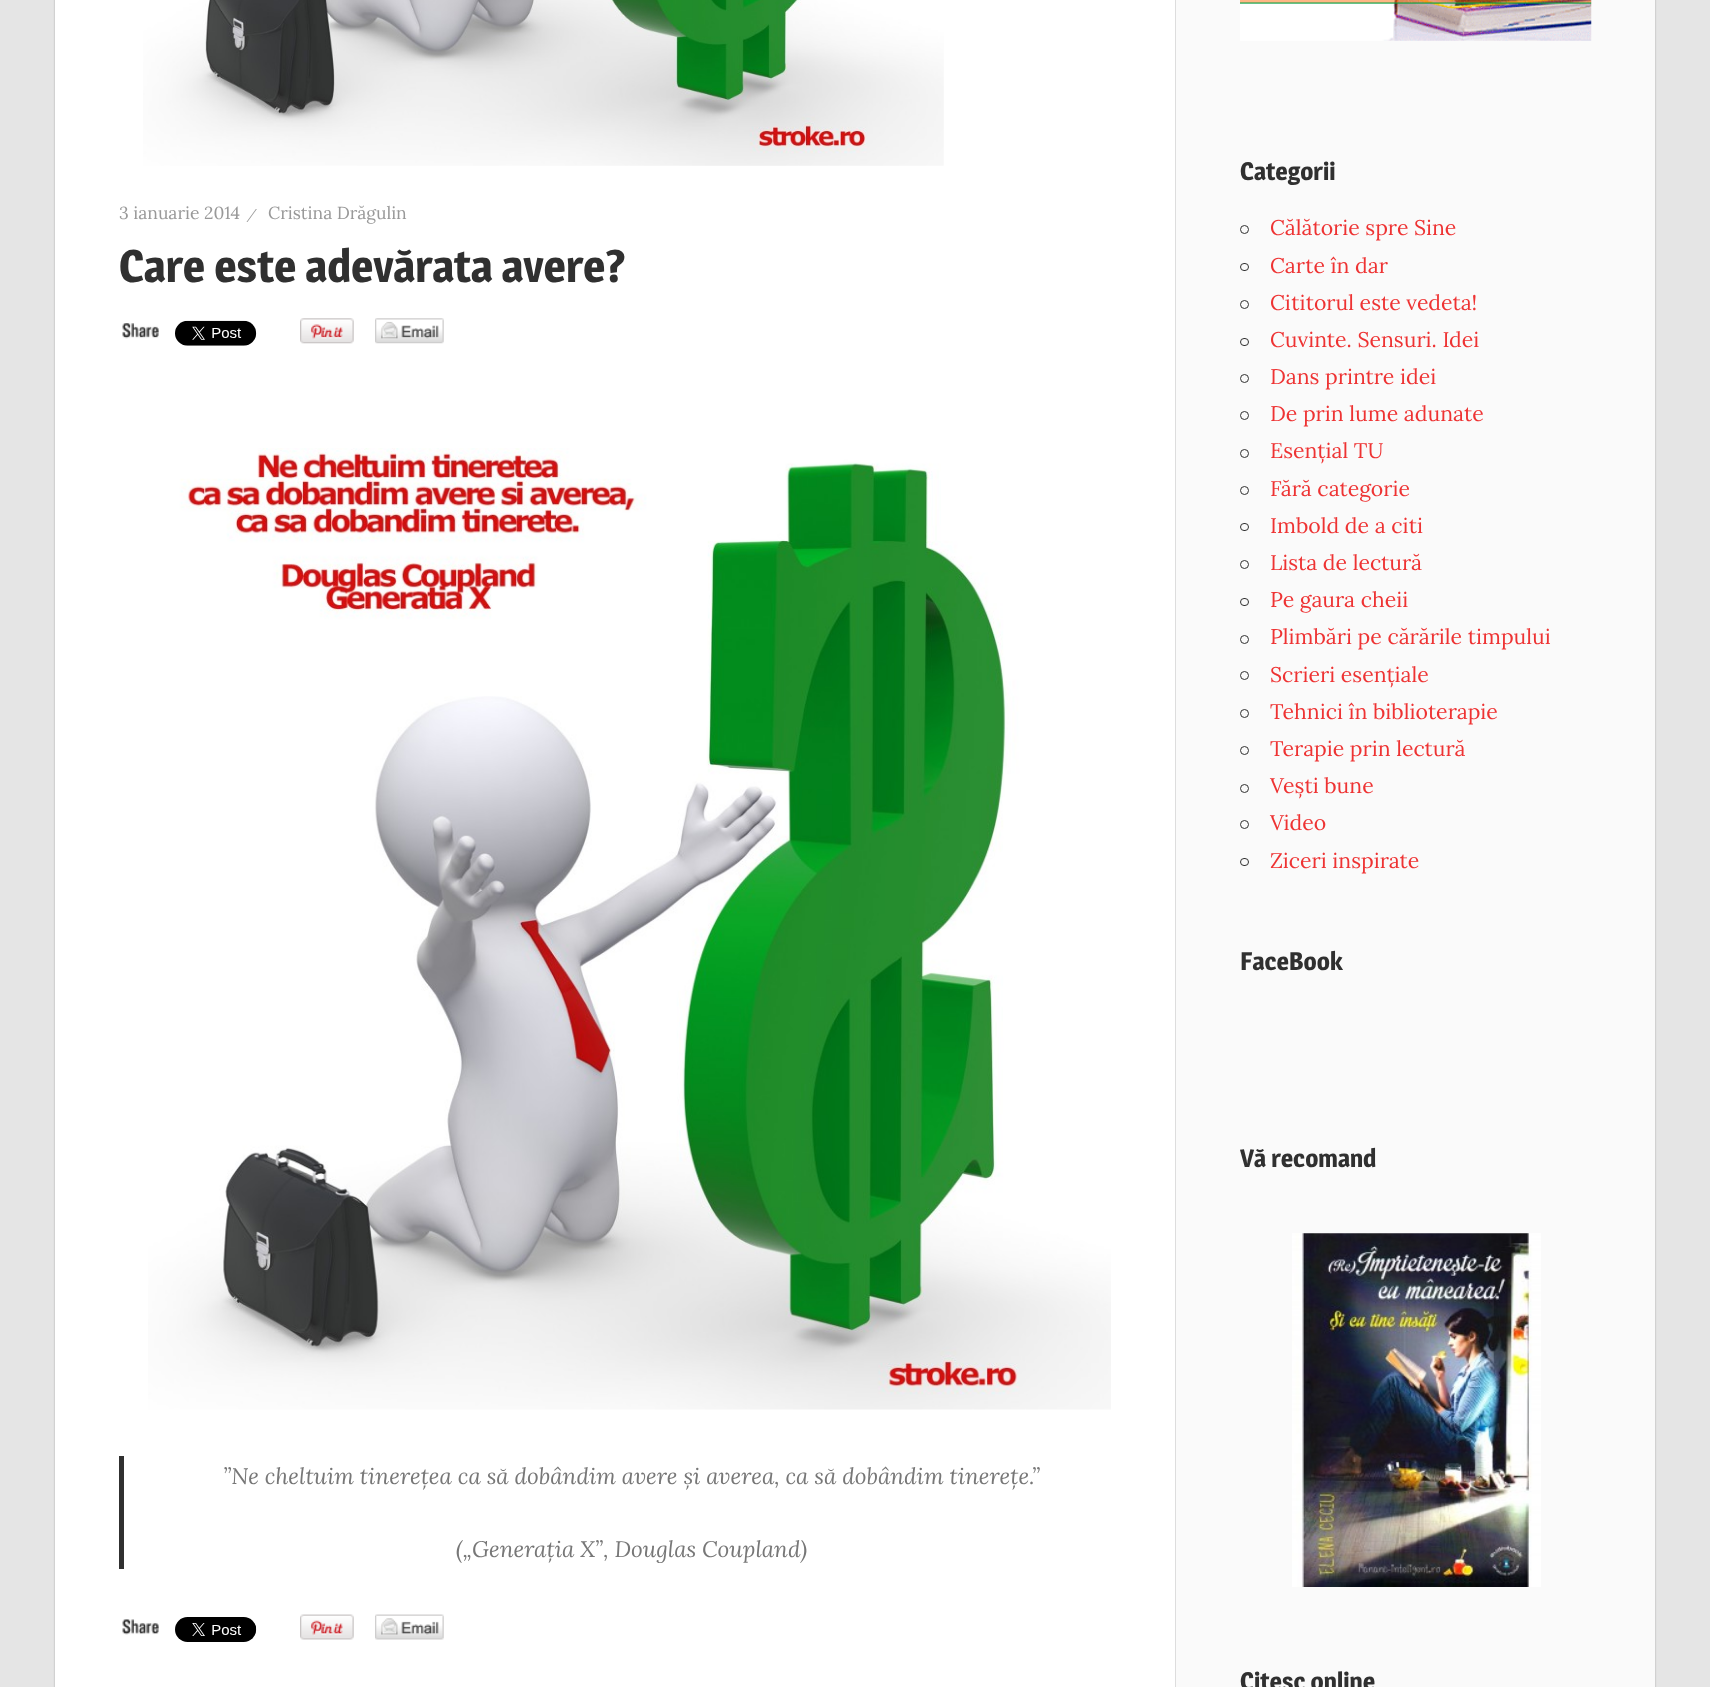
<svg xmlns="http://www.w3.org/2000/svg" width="1710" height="1687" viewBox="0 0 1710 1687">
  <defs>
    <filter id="blur1" x="-50%" y="-200%" width="200%" height="500%"><feGaussianBlur stdDeviation="1"/></filter>
  </defs>
  <rect width="100%" height="100%" fill="#e5e5e5"/>
  <rect x="55" y="-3" width="1600" height="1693" fill="#aaaaaa" filter="url(#blur1)"/>
  <rect x="55" y="0" width="1120" height="1687" fill="#ffffff"/>
  <image x="143" y="0" width="801" height="166" href="img1.png"/>
  <text x="119" y="219" font-family="Lora" font-size="17.5" fill="#999999">3 ianuarie 2014</text>
  <text x="250" y="222" font-family="Liberation Serif" font-size="20" fill="#999999">⁄</text>
  <text x="268" y="219" font-family="Lora" font-size="17.5" fill="#999999">Cristina Drăgulin</text>
  <text x="119" y="282" font-family="Magra" font-size="45" font-weight="600" fill="#303030">Care este adevărata avere?</text>
  <image x="122" y="323" width="37" height="16" href="img2.png"/>
  <image x="175" y="320" width="82" height="26" href="img3.png"/>
  <image x="300" y="318" width="54" height="26" href="img4.png"/>
  <image x="375" y="318" width="69" height="26" href="img5.png"/>
  <image x="148" y="448" width="963" height="962" href="img6.png"/>
  <rect x="119" y="1456" width="5" height="113" fill="#303030"/>
  <text x="223" y="1484" font-family="Lora" font-size="22.5" font-style="italic" fill="#777777">”Ne cheltuim tinerețea ca să dobândim avere și averea, ca să dobândim tinerețe.”</text>
  <text x="456" y="1557" font-family="Lora" font-size="22.5" font-style="italic" fill="#777777">(„Generația X”, Douglas Coupland)</text>
  <image x="122" y="1619" width="37" height="16" href="img7.png"/>
  <image x="175" y="1617" width="82" height="25" href="img8.png"/>
  <image x="300" y="1614" width="54" height="26" href="img9.png"/>
  <image x="375" y="1614" width="69" height="26" href="img10.png"/>
  <rect x="1176" y="0" width="479" height="1687" fill="#fafafa"/>
  <rect x="1175" y="0" width="1" height="1687" fill="#dddddd"/>
  <image x="1240" y="0" width="352" height="41" href="img11.png"/>
  <text x="1240" y="180" font-family="Magra" font-size="25" font-weight="600" fill="#303030">Categorii</text>
  <circle cx="1244.5" cy="229.5" r="4" fill="none" stroke="#303030"/>
  <text x="1270" y="235" font-family="Lora" font-size="21.25" fill="#ee3333">Călătorie spre Sine</text>
  <rect x="1240.5" y="263.5" width="8" height="7" rx="3.5" fill="none" stroke="#303030"/>
  <text x="1270" y="273" font-family="Lora" font-size="21.25" fill="#ee3333">Carte în dar</text>
  <circle cx="1244.5" cy="304.5" r="4" fill="none" stroke="#303030"/>
  <text x="1270" y="310" font-family="Lora" font-size="21.25" fill="#ee3333">Cititorul este vedeta!</text>
  <rect x="1240.5" y="338.5" width="8" height="7" rx="3.5" fill="none" stroke="#303030"/>
  <text x="1270" y="347" font-family="Lora" font-size="21.25" fill="#ee3333">Cuvinte. Sensuri. Idei</text>
  <circle cx="1244.5" cy="378.5" r="4" fill="none" stroke="#303030"/>
  <text x="1270" y="384" font-family="Lora" font-size="21.25" fill="#ee3333">Dans printre idei</text>
  <circle cx="1244.5" cy="415.5" r="4" fill="none" stroke="#303030"/>
  <text x="1270" y="421" font-family="Lora" font-size="21.25" fill="#ee3333">De prin lume adunate</text>
  <circle cx="1244.5" cy="453.5" r="4" fill="none" stroke="#303030"/>
  <text x="1270" y="458" font-family="Lora" font-size="21.25" fill="#ee3333">Esențial TU</text>
  <circle cx="1244.5" cy="490.5" r="4" fill="none" stroke="#303030"/>
  <text x="1270" y="496" font-family="Lora" font-size="21.25" fill="#ee3333">Fără categorie</text>
  <rect x="1240.5" y="523.5" width="8" height="7" rx="3.5" fill="none" stroke="#303030"/>
  <text x="1270" y="533" font-family="Lora" font-size="21.25" fill="#ee3333">Imbold de a citi</text>
  <circle cx="1244.5" cy="564.5" r="4" fill="none" stroke="#303030"/>
  <text x="1270" y="570" font-family="Lora" font-size="21.25" fill="#ee3333">Lista de lectură</text>
  <rect x="1240.5" y="598.5" width="8" height="7" rx="3.5" fill="none" stroke="#303030"/>
  <text x="1270" y="607" font-family="Lora" font-size="21.25" fill="#ee3333">Pe gaura cheii</text>
  <circle cx="1244.5" cy="639.5" r="4" fill="none" stroke="#303030"/>
  <text x="1270" y="644" font-family="Lora" font-size="21.25" fill="#ee3333">Plimbări pe cărările timpului</text>
  <circle cx="1244.5" cy="675.5" r="4" fill="none" stroke="#303030"/>
  <text x="1270" y="682" font-family="Lora" font-size="21.25" fill="#ee3333">Scrieri esențiale</text>
  <circle cx="1244.5" cy="713.5" r="4" fill="none" stroke="#303030"/>
  <text x="1270" y="719" font-family="Lora" font-size="21.25" fill="#ee3333">Tehnici în biblioterapie</text>
  <circle cx="1244.5" cy="750.5" r="4" fill="none" stroke="#303030"/>
  <text x="1270" y="756" font-family="Lora" font-size="21.25" fill="#ee3333">Terapie prin lectură</text>
  <circle cx="1244.5" cy="788.5" r="4" fill="none" stroke="#303030"/>
  <text x="1270" y="793" font-family="Lora" font-size="21.25" fill="#ee3333">Vești bune</text>
  <circle cx="1244.5" cy="824.5" r="4" fill="none" stroke="#303030"/>
  <text x="1270" y="830" font-family="Lora" font-size="21.25" fill="#ee3333">Video</text>
  <rect x="1240.5" y="858.5" width="8" height="7" rx="3.5" fill="none" stroke="#303030"/>
  <text x="1270" y="868" font-family="Lora" font-size="21.25" fill="#ee3333">Ziceri inspirate</text>
  <text x="1240" y="970" font-family="Magra" font-size="25" font-weight="600" fill="#303030">FaceBook</text>
  <text x="1240" y="1167" font-family="Magra" font-size="25" font-weight="600" fill="#303030">Vă recomand</text>
  <image x="1292" y="1233" width="249" height="354" href="img12.png"/>
  <text x="1240" y="1690" font-family="Magra" font-size="25" font-weight="600" fill="#303030">Citesc online</text>
</svg>
